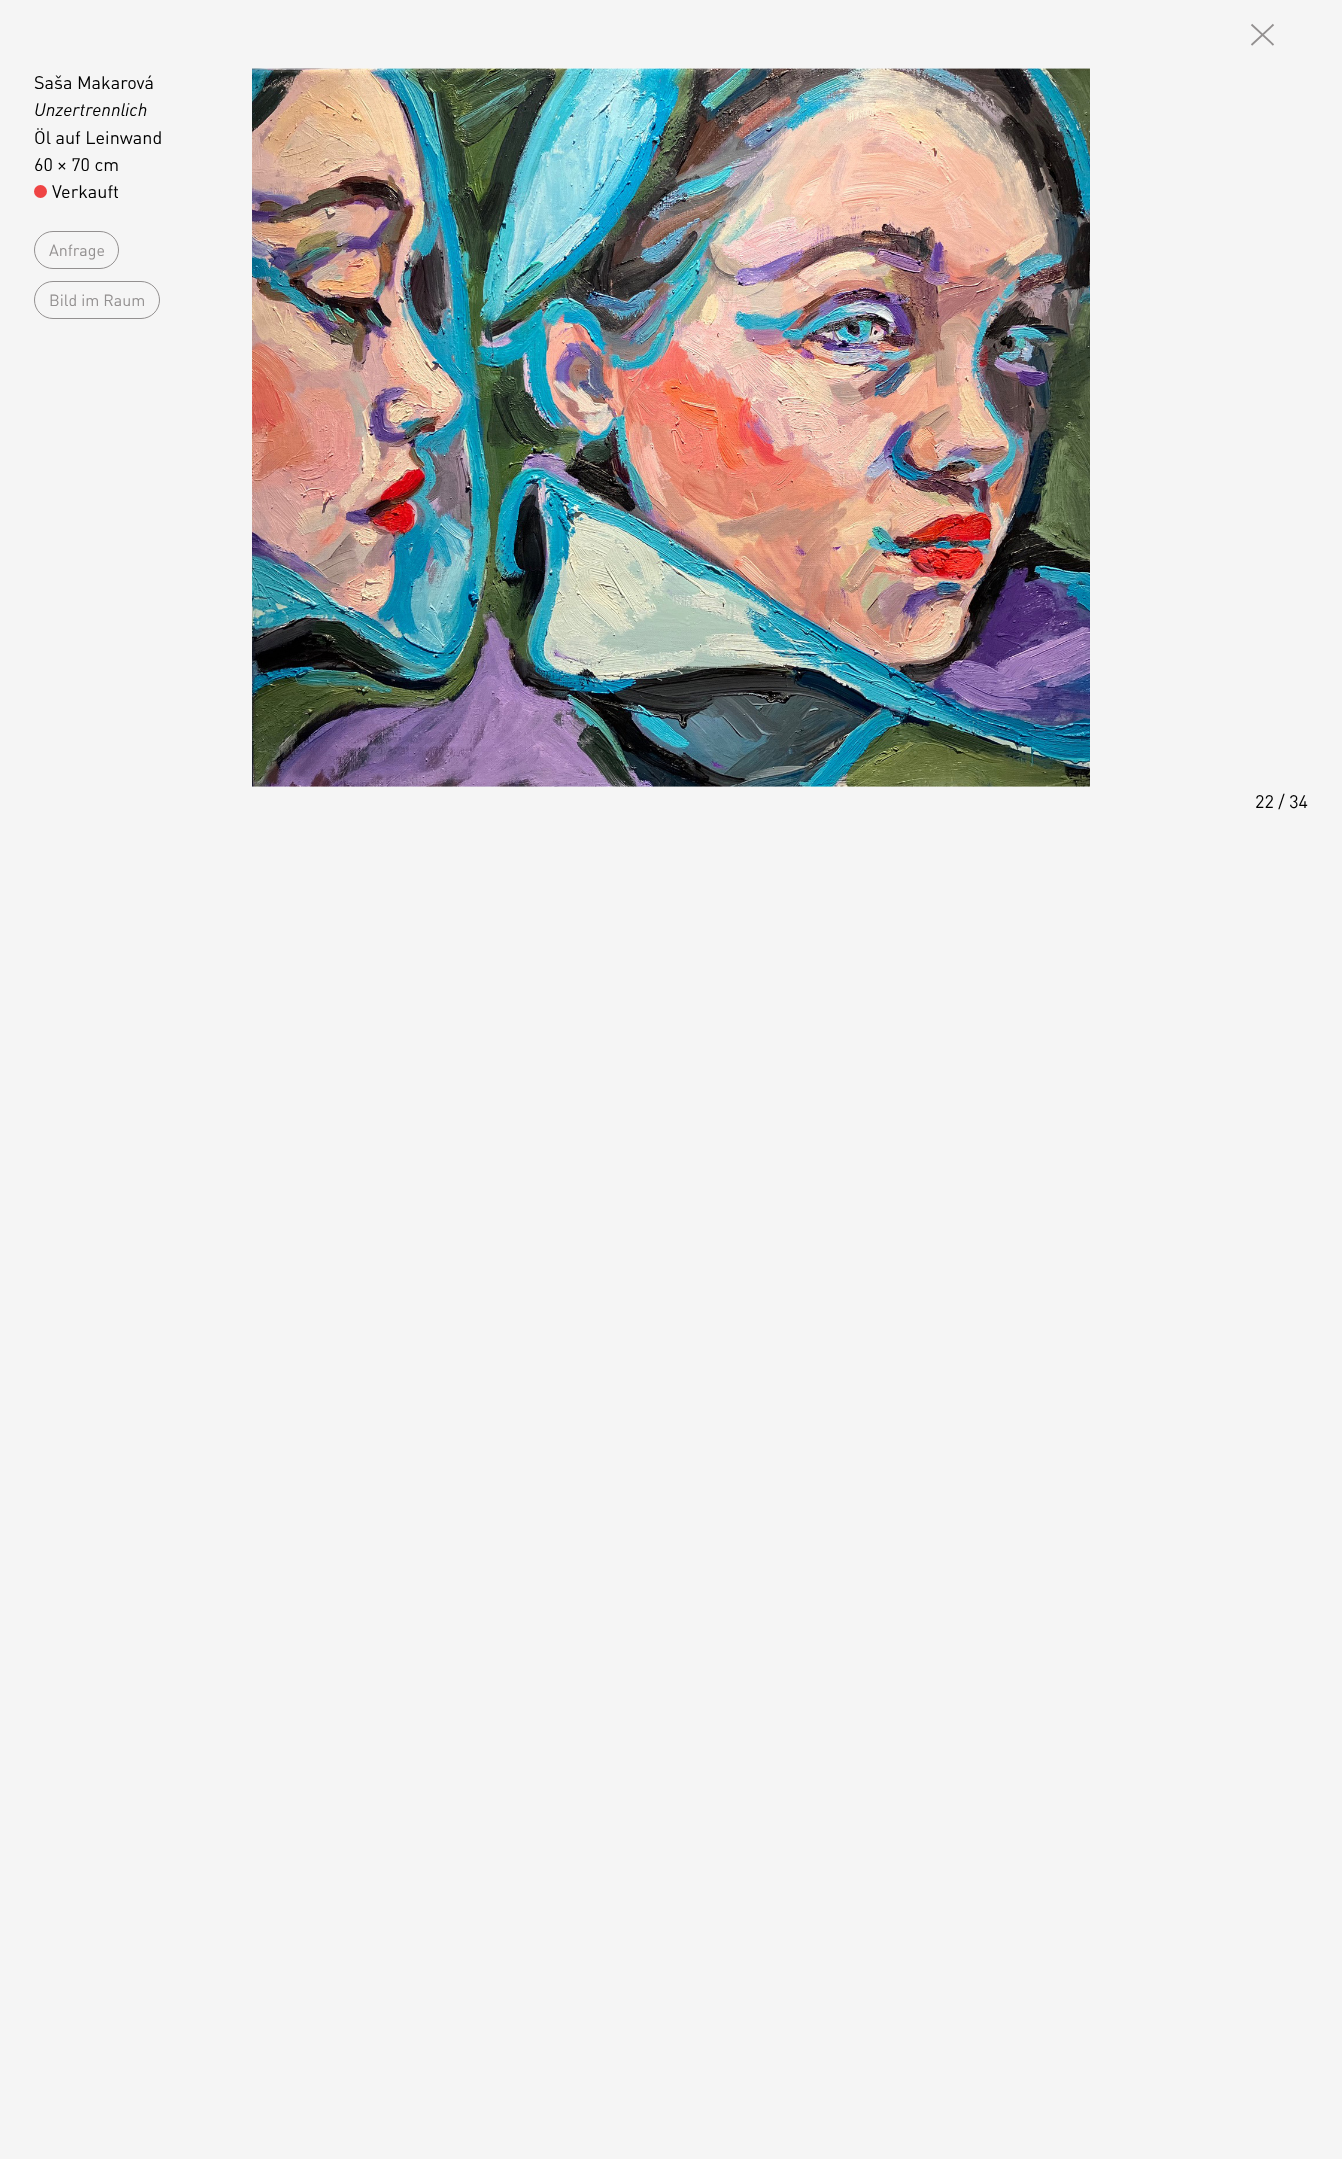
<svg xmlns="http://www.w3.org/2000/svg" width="1342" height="2159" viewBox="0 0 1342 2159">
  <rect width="100%" height="100%" fill="#f5f5f5"/>
  <path d="M1251.5 24.5L1273.5 45M1273.5 24.5L1251.5 45" fill="none" stroke="#939090" stroke-width="1.8"/>
  <text x="34" y="89" font-family="DIN" font-size="18" fill="#000000">Saša Makarová</text>
  <text x="34" y="116" font-family="DIN" font-size="18" font-style="italic" fill="#000000">Unzertrennlich</text>
  <text x="34" y="144" font-family="DIN" font-size="18" fill="#000000">Öl auf Leinwand</text>
  <text x="34" y="171" font-family="DIN" font-size="18" fill="#000000">60 × 70 cm</text>
  <circle cx="40.5" cy="191.5" r="6.5" fill="#ef4444"/>
  <text x="52" y="198" font-family="DIN" font-size="18" fill="#000000">Verkauft</text>
  <rect x="34.5" y="231.5" width="84" height="37" rx="18.5" fill="none" stroke="#939090"/>
  <text x="49" y="256" font-family="DIN" font-size="16" fill="#939090">Anfrage</text>
  <rect x="34.5" y="281.5" width="125" height="37" rx="18.5" fill="none" stroke="#939090"/>
  <text x="49" y="306" font-family="DIN" font-size="16" fill="#939090">Bild im Raum</text>
  <image x="252" y="68" width="838" height="719" href="img1.png"/>
  <text x="1255" y="808" font-family="DIN" font-size="18" fill="#000000">22 / 34</text>
</svg>
